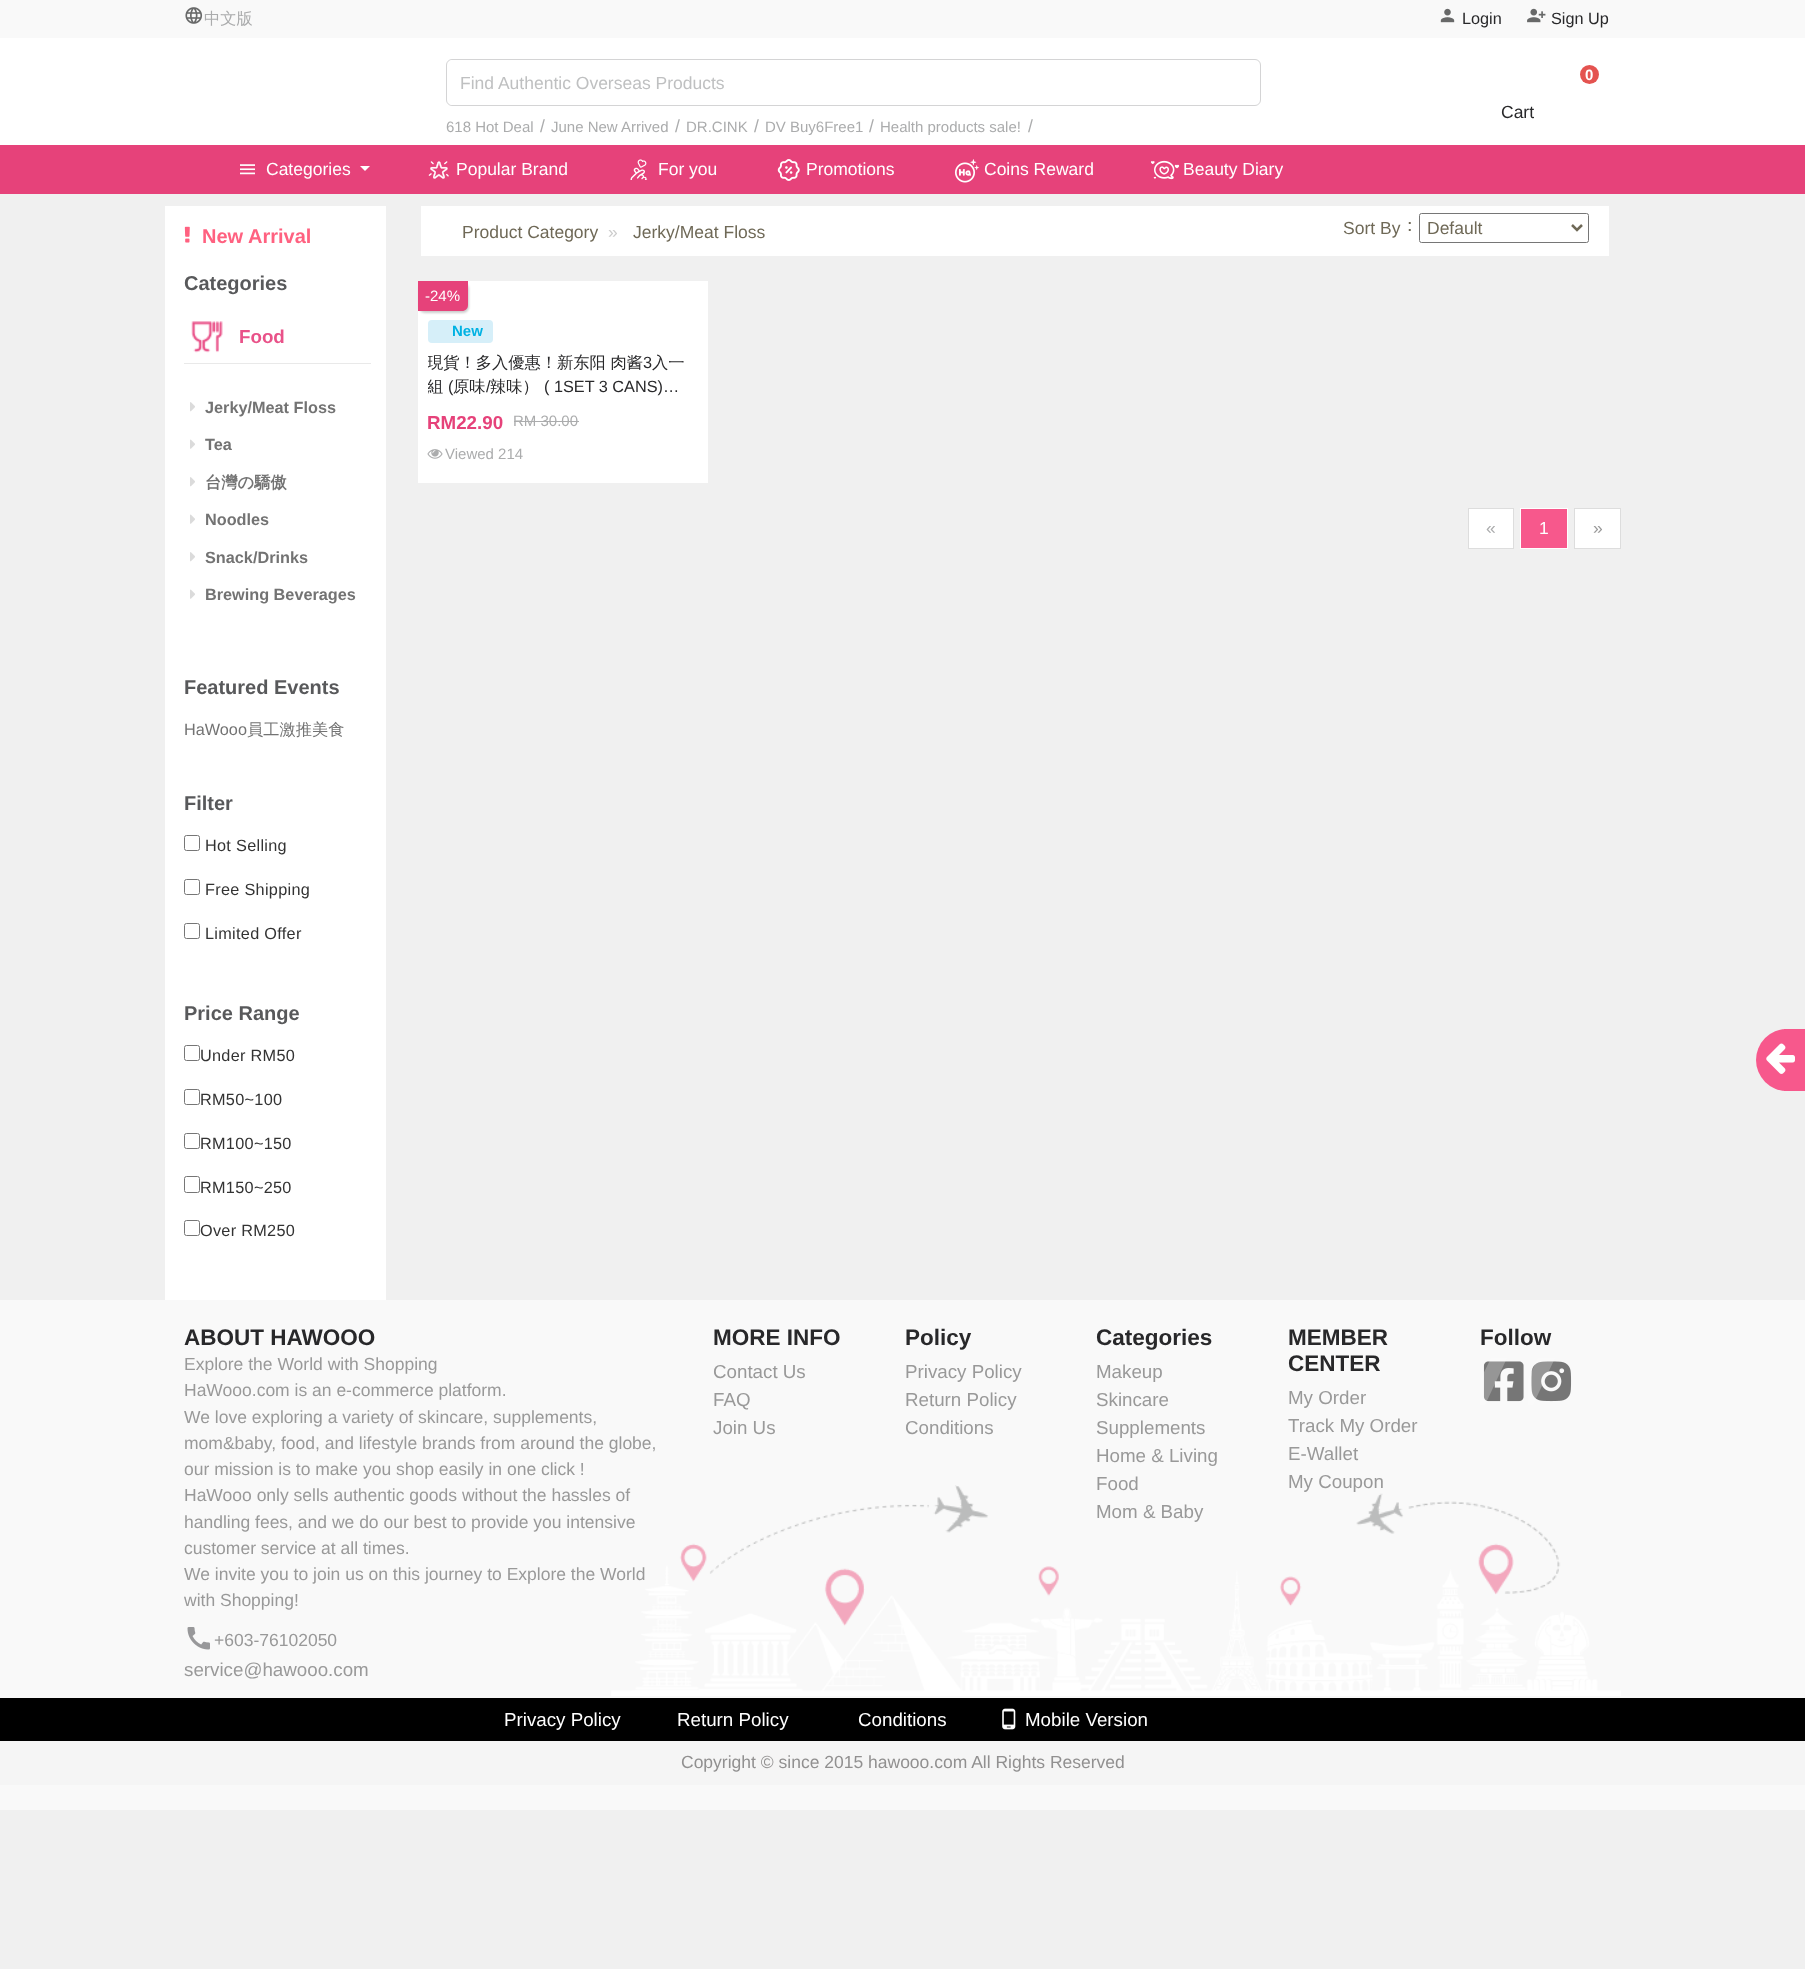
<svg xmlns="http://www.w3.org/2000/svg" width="1805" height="1969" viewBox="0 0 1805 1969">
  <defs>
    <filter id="blur1" x="-50%" y="-200%" width="200%" height="500%"><feGaussianBlur stdDeviation="1"/></filter>
    <clipPath id="clip1"><rect x="428" y="350" width="270" height="50"/></clipPath>
    <clipPath id="clip2"><rect x="1480" y="1358" width="48" height="47"/></clipPath>
    <clipPath id="clip3"><rect x="1528" y="1358" width="47" height="47"/></clipPath>
  </defs>
  <rect width="100%" height="100%" fill="#f0f0f0"/>
  <rect x="0" y="38" width="1805" height="107" fill="#ffffff"/>
  <rect x="0" y="0" width="1805" height="38" fill="#f9f9f9"/>
  <image x="185" y="7" width="18" height="17" href="img1.png"/>
  <text x="204" y="24" font-family="WenQuanYi Zen Hei" font-size="16.25" font-weight="500" fill="#abacad">中文版</text>
  <image x="1440" y="8" width="15" height="15" href="img2.png"/>
  <text x="1462" y="24" font-family="Liberation Sans" font-size="16.25" fill="#28282a">Login</text>
  <image x="1527" y="8" width="19" height="15" href="img3.png"/>
  <text x="1551" y="24" font-family="Liberation Sans" font-size="16.25" fill="#28282a">Sign Up</text>
  <rect x="446.5" y="59.5" width="814" height="46" rx="5.5" fill="none" stroke="#d4d4d5"/>
  <path d="M453 60H1209V105H453C450 105 448 103 448 100V65C448 62 450 60 453 60Z" fill="#ffffff"/>
  <text x="460" y="89" font-family="Liberation Sans" font-size="17.5" fill="#bfc0c1">Find Authentic Overseas Products</text>
  <circle cx="1589.5" cy="74.5" r="9.5" fill="#e45350"/>
  <text x="1585" y="80" font-family="Liberation Sans" font-size="15" font-weight="bold" fill="#ffffff">0</text>
  <text x="1501" y="118" font-family="Liberation Sans" font-size="17.5" fill="#28282a">Cart</text>
  <text x="446" y="132" font-family="Liberation Sans" font-size="15" fill="#abacad">618 Hot Deal</text>
  <text x="540" y="132" font-family="Liberation Sans" font-size="17.5" fill="#abacad">/</text>
  <text x="551" y="132" font-family="Liberation Sans" font-size="15" fill="#abacad">June New Arrived</text>
  <text x="675" y="132" font-family="Liberation Sans" font-size="17.5" fill="#abacad">/</text>
  <text x="686" y="132" font-family="Liberation Sans" font-size="15" fill="#abacad">DR.CINK</text>
  <text x="754" y="132" font-family="Liberation Sans" font-size="17.5" fill="#abacad">/</text>
  <text x="765" y="132" font-family="Liberation Sans" font-size="15" fill="#abacad">DV Buy6Free1</text>
  <text x="869" y="132" font-family="Liberation Sans" font-size="17.5" fill="#abacad">/</text>
  <text x="880" y="132" font-family="Liberation Sans" font-size="15" fill="#abacad">Health products sale!</text>
  <text x="1028" y="132" font-family="Liberation Sans" font-size="17.5" fill="#abacad">/</text>
  <rect x="0" y="145" width="1805" height="49" fill="#e6427a"/>
  <image x="240" y="164" width="15" height="11" href="img4.png"/>
  <text x="266" y="175" font-family="Liberation Sans" font-size="17.5" fill="#ffffff">Categories</text>
  <path d="M360 166H370L365 171Z" fill="#ffffff"/>
  <image x="428" y="161" width="21" height="18" href="img5.png"/>
  <text x="456" y="175" font-family="Liberation Sans" font-size="17.5" fill="#ffffff">Popular Brand</text>
  <image x="630" y="159" width="18" height="21" href="img6.png"/>
  <text x="658" y="175" font-family="Liberation Sans" font-size="17.5" fill="#ffffff">For you</text>
  <image x="777" y="159" width="23" height="22" href="img7.png"/>
  <text x="806" y="175" font-family="Liberation Sans" font-size="17.5" fill="#ffffff">Promotions</text>
  <image x="954" y="159" width="25" height="24" href="img8.png"/>
  <text x="984" y="175" font-family="Liberation Sans" font-size="17.5" fill="#ffffff">Coins Reward</text>
  <image x="1151" y="160" width="29" height="20" href="img9.png"/>
  <text x="1183" y="175" font-family="Liberation Sans" font-size="17.5" fill="#ffffff">Beauty Diary</text>
  <rect x="165" y="206" width="221" height="1094" fill="#ffffff"/>
  <image x="184" y="226" width="6" height="17" href="img10.png"/>
  <text x="202" y="243" font-family="Liberation Sans" font-size="20" font-weight="bold" fill="#ff6180">New Arrival</text>
  <text x="184" y="290" font-family="Liberation Sans" font-size="20" font-weight="bold" fill="#58595b">Categories</text>
  <image x="191" y="321" width="32" height="32" href="img11.png"/>
  <rect x="184" y="363" width="187" height="1" fill="#e9e9e9"/>
  <text x="239" y="343" font-family="Liberation Sans" font-size="18.75" font-weight="bold" fill="#e95289">Food</text>
  <image x="190" y="402" width="5" height="10" href="img12.png"/>
  <text x="205" y="413" font-family="Liberation Sans" font-size="16.25" font-weight="bold" fill="#737373">Jerky/Meat Floss</text>
  <image x="190" y="439" width="5" height="10" href="img13.png"/>
  <text x="205" y="450" font-family="Liberation Sans" font-size="16.25" font-weight="bold" fill="#737373">Tea</text>
  <image x="190" y="477" width="5" height="10" href="img12.png"/>
  <text x="205" y="488" font-family="WenQuanYi Zen Hei" font-size="16.25" font-weight="bold" fill="#737373">台灣の驕傲</text>
  <image x="190" y="514" width="5" height="10" href="img13.png"/>
  <text x="205" y="525" font-family="Liberation Sans" font-size="16.25" font-weight="bold" fill="#737373">Noodles</text>
  <image x="190" y="552" width="5" height="10" href="img12.png"/>
  <text x="205" y="563" font-family="Liberation Sans" font-size="16.25" font-weight="bold" fill="#737373">Snack/Drinks</text>
  <image x="190" y="589" width="5" height="10" href="img13.png"/>
  <text x="205" y="600" font-family="Liberation Sans" font-size="16.25" font-weight="bold" fill="#737373">Brewing Beverages</text>
  <text x="184" y="694" font-family="Liberation Sans" font-size="20" font-weight="bold" fill="#58595b">Featured Events</text>
  <text x="184" y="735" font-family="Liberation Sans" font-size="16.25" fill="#737373">HaWooo</text>
  <text x="247" y="735" font-family="WenQuanYi Zen Hei" font-size="16.25" font-weight="500" fill="#737373">員工激推美食</text>
  <text x="184" y="810" font-family="Liberation Sans" font-size="20" font-weight="bold" fill="#58595b">Filter</text>
  <rect x="184.5" y="835.5" width="15" height="15" rx="2" fill="none" stroke="#767676"/>
  <text x="205" y="851" font-family="Liberation Sans" font-size="16.25" letter-spacing="0.3" fill="#333333">Hot Selling</text>
  <rect x="184.5" y="879.5" width="15" height="15" rx="2" fill="none" stroke="#767676"/>
  <text x="205" y="895" font-family="Liberation Sans" font-size="16.25" letter-spacing="0.3" fill="#333333">Free Shipping</text>
  <rect x="184.5" y="923.5" width="15" height="15" rx="2" fill="none" stroke="#767676"/>
  <text x="205" y="939" font-family="Liberation Sans" font-size="16.25" letter-spacing="0.3" fill="#333333">Limited Offer</text>
  <text x="184" y="1020" font-family="Liberation Sans" font-size="20" font-weight="bold" fill="#58595b">Price Range</text>
  <rect x="184.5" y="1045.5" width="15" height="15" rx="2" fill="none" stroke="#767676"/>
  <text x="200" y="1061" font-family="Liberation Sans" font-size="16.25" letter-spacing="0.3" fill="#333333">Under RM50</text>
  <rect x="184.5" y="1089.5" width="15" height="15" rx="2" fill="none" stroke="#767676"/>
  <text x="200" y="1105" font-family="Liberation Sans" font-size="16.25" letter-spacing="0.3" fill="#333333">RM50~100</text>
  <rect x="184.5" y="1133.5" width="15" height="15" rx="2" fill="none" stroke="#767676"/>
  <text x="200" y="1149" font-family="Liberation Sans" font-size="16.25" letter-spacing="0.3" fill="#333333">RM100~150</text>
  <rect x="184.5" y="1176.5" width="15" height="16" rx="2" fill="none" stroke="#767676"/>
  <text x="200" y="1193" font-family="Liberation Sans" font-size="16.25" letter-spacing="0.3" fill="#333333">RM150~250</text>
  <rect x="184.5" y="1220.5" width="15" height="15" rx="2" fill="none" stroke="#767676"/>
  <text x="200" y="1236" font-family="Liberation Sans" font-size="16.25" letter-spacing="0.3" fill="#333333">Over RM250</text>
  <rect x="421" y="206" width="1188" height="50" fill="#ffffff"/>
  <text x="462" y="238" font-family="Liberation Sans" font-size="17.5" fill="#6f6957">Product Category</text>
  <text x="608" y="238" font-family="Liberation Sans" font-size="17.5" fill="#cccccc">»</text>
  <text x="633" y="238" font-family="Liberation Sans" font-size="17.5" fill="#6f6957">Jerky/Meat Floss</text>
  <text x="1343" y="234" font-family="Liberation Sans" font-size="17.5" fill="#6f6957">Sort By</text>
  <text x="1401" y="231" font-family="WenQuanYi Zen Hei" font-size="17.5" font-weight="500" fill="#6f6957">：</text>
  <rect x="1419.5" y="213.5" width="169" height="29" rx="2" fill="none" stroke="#767676"/>
  <path d="M1572 225L1577 230L1582 225" fill="none" stroke="#6f6957" stroke-width="2.5"/>
  <text x="1427" y="234" font-family="Liberation Sans" font-size="17.5" fill="#6f6957">Default</text>
  <rect x="418" y="281" width="290" height="202" fill="#ffffff"/>
  <rect x="419" y="283" width="50" height="30" rx="6" fill="#000000" fill-opacity="0.2" filter="url(#blur1)"/>
  <path d="M418 281H468V305C468 308.5 465.5 311 462 311H418Z" fill="#e6427a"/>
  <text x="425" y="301" font-family="Liberation Sans" font-size="15" fill="#ffffff">-24%</text>
  <rect x="428" y="320" width="65" height="23" rx="4" fill="#d6eff9"/>
  <text x="452" y="336" font-family="Liberation Sans" font-size="15" font-weight="bold" fill="#00b2e3">New</text>
  <g clip-path="url(#clip1)">
    <text x="427" y="368" font-family="WenQuanYi Zen Hei" font-size="16.25" font-weight="500" fill="#28282a">現貨！多入優惠！新东阳 肉酱</text>
  </g>
  <text x="643" y="368" font-family="Liberation Sans" font-size="16.25" fill="#28282a">3</text>
  <text x="652" y="368" font-family="WenQuanYi Zen Hei" font-size="16.25" font-weight="500" fill="#28282a">入一</text>
  <g clip-path="url(#clip1)">
    <text x="427" y="392" font-family="WenQuanYi Zen Hei" font-size="16.25" font-weight="500" fill="#28282a">組</text>
  </g>
  <text x="448" y="392" font-family="Liberation Sans" font-size="16.25" fill="#28282a">(</text>
  <text x="453" y="392" font-family="WenQuanYi Zen Hei" font-size="16.25" font-weight="500" fill="#28282a">原味</text>
  <text x="486" y="392" font-family="Liberation Sans" font-size="16.25" fill="#28282a">/</text>
  <text x="490" y="392" font-family="WenQuanYi Zen Hei" font-size="16.25" font-weight="500" fill="#28282a">辣味）</text>
  <text x="544" y="392" font-family="Liberation Sans" font-size="16.25" fill="#28282a">( 1SET 3 CANS)…</text>
  <text x="427" y="429" font-family="Liberation Sans" font-size="18.75" font-weight="bold" fill="#e6427a">RM22.90</text>
  <text x="513" y="426" font-family="Liberation Sans" font-size="15" fill="#abacad">RM 30.00</text>
  <rect x="514" y="421" width="65" height="1" fill="#abacad"/>
  <image x="427" y="449" width="16" height="10" href="img14.png"/>
  <text x="445" y="459" font-family="Liberation Sans" font-size="15" fill="#abacad">Viewed 214</text>
  <rect x="1468.5" y="508.5" width="45" height="40" fill="#ffffff" stroke="#dddddd"/>
  <text x="1486" y="534" font-family="Liberation Sans" font-size="17.5" fill="#abacad">«</text>
  <rect x="1520.5" y="508.5" width="47" height="40" fill="#f7588c" stroke="#ffffff"/>
  <text x="1539" y="534" font-family="Liberation Sans" font-size="17.5" fill="#ffffff">1</text>
  <rect x="1574.5" y="508.5" width="46" height="40" fill="#ffffff" stroke="#dddddd"/>
  <text x="1593" y="534" font-family="Liberation Sans" font-size="17.5" fill="#999999">»</text>
  <rect x="1784" y="1029" width="21" height="62" fill="#f7588c"/>
  <rect x="1756" y="1029" width="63" height="62" rx="31" fill="#f7588c"/>
  <image x="1766" y="1043" width="29" height="31" href="img15.png"/>
  <rect x="0" y="1300" width="1805" height="510" fill="#f9f9f9"/>
  <image x="611" y="1485" width="1010" height="211" href="img16.png"/>
  <text x="184" y="1345" font-family="Liberation Sans" font-size="22.5" font-weight="bold" fill="#28282a">ABOUT HAWOOO</text>
  <text x="184" y="1370" font-family="Liberation Sans" font-size="17.5" fill="#999999">Explore the World with Shopping</text>
  <text x="184" y="1396" font-family="Liberation Sans" font-size="17.5" fill="#999999">HaWooo.com is an e-commerce platform.</text>
  <text x="184" y="1423" font-family="Liberation Sans" font-size="17.5" fill="#999999">We love exploring a variety of skincare, supplements,</text>
  <text x="184" y="1449" font-family="Liberation Sans" font-size="17.5" fill="#999999">mom&amp;baby, food, and lifestyle brands from around the globe,</text>
  <text x="184" y="1475" font-family="Liberation Sans" font-size="17.5" fill="#999999">our mission is to make you shop easily in one click !</text>
  <text x="184" y="1501" font-family="Liberation Sans" font-size="17.5" fill="#999999">HaWooo only sells authentic goods without the hassles of</text>
  <text x="184" y="1528" font-family="Liberation Sans" font-size="17.5" fill="#999999">handling fees, and we do our best to provide you intensive</text>
  <text x="184" y="1554" font-family="Liberation Sans" font-size="17.5" fill="#999999">customer service at all times.</text>
  <text x="184" y="1580" font-family="Liberation Sans" font-size="17.5" fill="#999999">We invite you to join us on this journey to Explore the World</text>
  <text x="184" y="1606" font-family="Liberation Sans" font-size="17.5" fill="#999999">with Shopping!</text>
  <image x="187" y="1627" width="23" height="23" href="img17.png"/>
  <text x="214" y="1646" font-family="Liberation Sans" font-size="17.5" fill="#999999">+603-76102050</text>
  <text x="184" y="1676" font-family="Liberation Sans" font-size="18.75" fill="#999999">service@hawooo.com</text>
  <text x="713" y="1345" font-family="Liberation Sans" font-size="22.5" font-weight="bold" fill="#28282a">MORE INFO</text>
  <text x="713" y="1378" font-family="Liberation Sans" font-size="18.75" fill="#999999">Contact Us</text>
  <text x="713" y="1406" font-family="Liberation Sans" font-size="18.75" fill="#999999">FAQ</text>
  <text x="713" y="1434" font-family="Liberation Sans" font-size="18.75" fill="#999999">Join Us</text>
  <text x="905" y="1345" font-family="Liberation Sans" font-size="22.5" font-weight="bold" fill="#28282a">Policy</text>
  <text x="905" y="1378" font-family="Liberation Sans" font-size="18.75" fill="#999999">Privacy Policy</text>
  <text x="905" y="1406" font-family="Liberation Sans" font-size="18.75" fill="#999999">Return Policy</text>
  <text x="905" y="1434" font-family="Liberation Sans" font-size="18.75" fill="#999999">Conditions</text>
  <text x="1096" y="1345" font-family="Liberation Sans" font-size="22.5" font-weight="bold" fill="#28282a">Categories</text>
  <text x="1096" y="1378" font-family="Liberation Sans" font-size="18.75" fill="#999999">Makeup</text>
  <text x="1096" y="1406" font-family="Liberation Sans" font-size="18.75" fill="#999999">Skincare</text>
  <text x="1096" y="1434" font-family="Liberation Sans" font-size="18.75" fill="#999999">Supplements</text>
  <text x="1096" y="1462" font-family="Liberation Sans" font-size="18.75" fill="#999999">Home &amp; Living</text>
  <text x="1096" y="1490" font-family="Liberation Sans" font-size="18.75" fill="#999999">Food</text>
  <text x="1096" y="1518" font-family="Liberation Sans" font-size="18.75" fill="#999999">Mom &amp; Baby</text>
  <text x="1288" y="1345" font-family="Liberation Sans" font-size="22.5" font-weight="bold" fill="#28282a">MEMBER</text>
  <text x="1288" y="1371" font-family="Liberation Sans" font-size="22.5" font-weight="bold" fill="#28282a">CENTER</text>
  <text x="1288" y="1404" font-family="Liberation Sans" font-size="18.75" fill="#999999">My Order</text>
  <text x="1288" y="1432" font-family="Liberation Sans" font-size="18.75" fill="#999999">Track My Order</text>
  <text x="1288" y="1460" font-family="Liberation Sans" font-size="18.75" fill="#999999">E-Wallet</text>
  <text x="1288" y="1488" font-family="Liberation Sans" font-size="18.75" fill="#999999">My Coupon</text>
  <text x="1480" y="1345" font-family="Liberation Sans" font-size="22.5" font-weight="bold" fill="#28282a">Follow</text>
  <image x="1483" y="1361" width="41" height="41" href="img18.png"/>
  <g clip-path="url(#clip2)">
    <path d="M1491 1358H1507L1485 1405H1468Z" fill="#ffffff" fill-opacity="0.24"/>
  </g>
  <image x="1531" y="1361" width="41" height="41" href="img19.png"/>
  <g clip-path="url(#clip3)">
    <path d="M1538 1358H1555L1533 1405H1516Z" fill="#ffffff" fill-opacity="0.24"/>
  </g>
  <rect x="0" y="1698" width="1805" height="43" fill="#000000"/>
  <text x="504" y="1726" font-family="Liberation Sans" font-size="18.75" fill="#ffffff">Privacy Policy</text>
  <text x="677" y="1726" font-family="Liberation Sans" font-size="18.75" fill="#ffffff">Return Policy</text>
  <text x="858" y="1726" font-family="Liberation Sans" font-size="18.75" fill="#ffffff">Conditions</text>
  <image x="1002" y="1708" width="14" height="22" href="img20.png"/>
  <text x="1025" y="1726" font-family="Liberation Sans" font-size="18.75" fill="#ffffff">Mobile Version</text>
  <rect x="0" y="1741" width="1805" height="44" fill="#f5f5f5"/>
  <text x="681" y="1768" font-family="Liberation Sans" font-size="17.5" fill="#919090">Copyright © since 2015 hawooo.com All Rights Reserved</text>
</svg>
